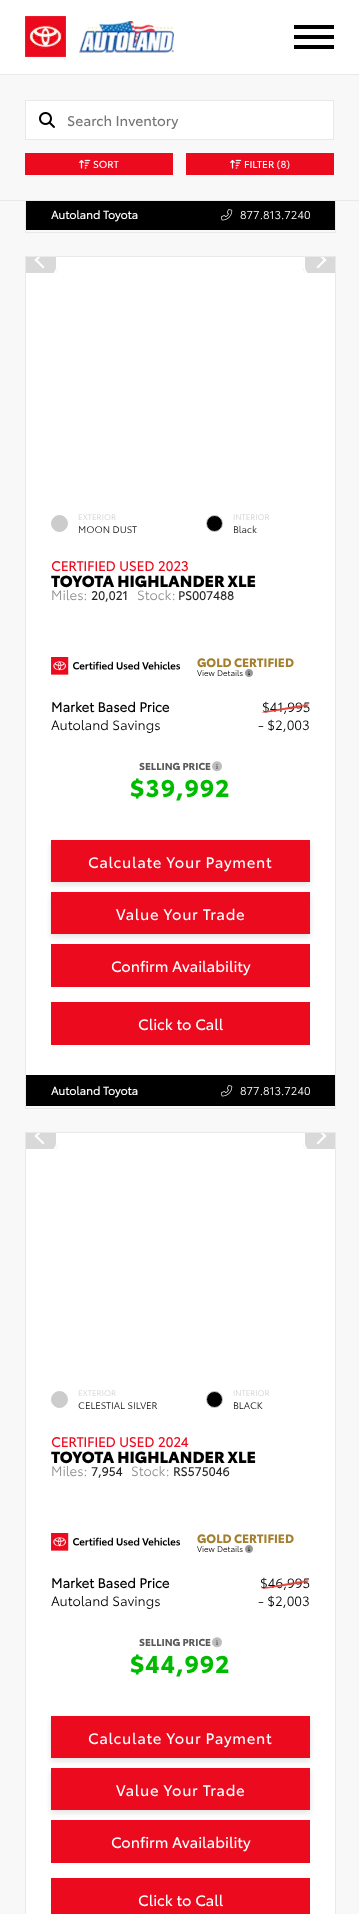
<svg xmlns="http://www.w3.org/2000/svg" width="359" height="1914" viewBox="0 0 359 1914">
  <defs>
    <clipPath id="clip1"><rect x="26" y="257" width="309" height="16"/></clipPath>
    <filter id="blur1" x="-50%" y="-200%" width="200%" height="500%"><feGaussianBlur stdDeviation="2.5"/></filter>
    <clipPath id="clip2"><rect x="26" y="1133" width="309" height="16"/></clipPath>
  </defs>
  <rect width="100%" height="100%" fill="#f8f8f8"/>
  <rect x="25.5" y="-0.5" width="310" height="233" fill="none" stroke="#e9e9e9"/>
  <rect x="0" y="0" width="359" height="74" fill="#ffffff"/>
  <rect x="0" y="74" width="359" height="1" fill="#e9e9e9"/>
  <image x="25" y="16" width="41" height="41" href="img1.png"/>
  <image x="79" y="21" width="95" height="32" href="img2.png"/>
  <rect x="294" y="25" width="40" height="4" fill="#000000"/>
  <rect x="294" y="35" width="40" height="4" fill="#000000"/>
  <rect x="294" y="45" width="40" height="4" fill="#000000"/>
  <rect x="25" y="75" width="311" height="125" fill="#f8f8f8"/>
  <rect x="0" y="200" width="359" height="1" fill="#e9e9e9"/>
  <rect x="25.5" y="100.5" width="308" height="39" fill="#ffffff" stroke="#e9e9e9"/>
  <image x="39" y="112" width="16" height="16" href="img3.png"/>
  <text x="67" y="126" font-family="'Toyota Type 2'" font-size="14" fill="#757575">Search Inventory</text>
  <rect x="25" y="153" width="148" height="22" fill="#eb0a1e"/>
  <image x="79" y="159" width="12" height="10" href="img4.png"/>
  <text x="93" y="168" font-family="'Toyota Type 2'" font-size="10" fill="#ffffff">SORT</text>
  <rect x="186" y="153" width="148" height="22" fill="#eb0a1e"/>
  <image x="230" y="159" width="12" height="10" href="img4.png"/>
  <text x="244" y="168" font-family="'Toyota Type 2'" font-size="10" fill="#ffffff">FILTER (8)</text>
  <rect x="26" y="201" width="309" height="29" fill="#000000"/>
  <text x="51" y="219" font-family="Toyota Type" font-size="11.25" font-weight="bold" fill="#ffffff">Autoland Toyota</text>
  <image x="221" y="209" width="12" height="12" href="img5.png"/>
  <text x="240" y="219" font-family="Toyota Type" font-size="11.25" fill="#ffffff">877.813.7240</text>
  <rect x="25.5" y="256.5" width="310" height="852" fill="none" stroke="#e9e9e9"/>
  <rect x="26" y="257" width="309" height="818" fill="#ffffff"/>
  <g clip-path="url(#clip1)">
    <path d="M26 257H58V267C58 272.5 53.5 277 48 277H26Z" fill="#d9d9d9"/>
    <path d="M25 244H48C53 244 57 248 57 253V267C57 272 53 276 48 276H25Z" fill="none" stroke="#ffffff" stroke-width="2"/>
  </g>
  <path d="M44.5 267L43 268.5L34.5 260L36 258.5Z" fill="#ffffff"/>
  <g clip-path="url(#clip1)">
    <path d="M44.5 253L36 261.5L34.5 260L43 251.5Z" fill="#ffffff"/>
    <path d="M303 257H335V277H313C307.5 277 303 272.5 303 267Z" fill="#d9d9d9"/>
    <path d="M313 244H336V276H313C308 276 304 272 304 267V253C304 248 308 244 313 244Z" fill="none" stroke="#ffffff" stroke-width="2"/>
    <path d="M316.5 253L318 251.5L326.5 260L325 261.5Z" fill="#ffffff"/>
  </g>
  <path d="M316.5 267L325 258.5L326.5 260L318 268.5Z" fill="#ffffff"/>
  <circle cx="59.5" cy="523.5" r="8" fill="#cccccc" stroke="#cccccc"/>
  <text x="78" y="520" font-family="Toyota Type" font-size="8" fill="#d3d3d3">EXTERIOR</text>
  <text x="78" y="533" font-family="Toyota Type" font-size="9.5" fill="#111111">MOON DUST</text>
  <circle cx="214.5" cy="523.5" r="8" fill="#000000" stroke="#cccccc"/>
  <text x="233" y="520" font-family="Toyota Type" font-size="8" fill="#d3d3d3">INTERIOR</text>
  <text x="233" y="533" font-family="Toyota Type" font-size="9.5" fill="#111111">Black</text>
  <text x="51" y="571" font-family="Toyota Type" font-size="13.25" font-weight="bold" fill="#eb0a1e">CERTIFIED USED 2023</text>
  <text x="51" y="587" font-family="Toyota Type" font-size="16" font-weight="900" fill="#000000">TOYOTA HIGHLANDER XLE</text>
  <text x="51" y="600" font-family="Toyota Type" font-size="13.25" fill="#909090">Miles:</text>
  <text x="91" y="600" font-family="Toyota Type" font-size="12" font-weight="bold" fill="#262626">20,021</text>
  <text x="137" y="600" font-family="Toyota Type" font-size="13.25" fill="#909090">Stock:</text>
  <text x="178" y="600" font-family="Toyota Type" font-size="12" font-weight="bold" fill="#262626">PS007488</text>
  <image x="51" y="657" width="129" height="18" href="img6.png"/>
  <text x="197" y="667" font-family="'Toyota Type 2'" font-size="12" font-weight="bold" fill="#a37e2c">GOLD CERTIFIED</text>
  <text x="197" y="676" font-family="Toyota Type" font-size="8" fill="#000000">View Details</text>
  <image x="248" y="671" width="2" height="4" href="img8.png"/>
  <image x="245" y="669" width="8" height="8" href="img7.png"/>
  <text x="51" y="712" font-family="Toyota Type" font-size="13.25" font-weight="bold" fill="#000000">Market Based Price</text>
  <text x="262" y="712" font-family="Toyota Type" font-size="13.25" fill="#000000">$41,995</text>
  <image x="261" y="703" width="48" height="10" href="img9.png"/>
  <text x="51" y="730" font-family="Toyota Type" font-size="13.25" fill="#000000">Autoland Savings</text>
  <text x="258" y="730" font-family="Toyota Type" font-size="13.25" fill="#000000">- $2,003</text>
  <text x="139" y="770" font-family="'Toyota Type 2'" font-size="10" font-weight="bold" fill="#595959">SELLING PRICE</text>
  <image x="215" y="763" width="4" height="6" href="img11.png"/>
  <image x="212" y="761" width="10" height="11" href="img10.png"/>
  <text x="130" y="797" font-family="'Toyota Type 2'" font-size="24" font-weight="bold" letter-spacing="1" fill="#00bb00">$39,992</text>
  <rect x="51" y="843" width="259" height="42" fill="#333333" fill-opacity="0.13" filter="url(#blur1)"/>
  <rect x="51" y="840" width="259" height="42" fill="#eb0a1e"/>
  <text x="88" y="868" font-family="'Toyota Type 2'" font-size="15" letter-spacing="0.7" fill="#ffffff">Calculate Your Payment</text>
  <rect x="51" y="944" width="259" height="43" fill="#eb0a1e"/>
  <rect x="51" y="895" width="259" height="42" fill="#333333" fill-opacity="0.13" filter="url(#blur1)"/>
  <rect x="51" y="892" width="259" height="42" fill="#eb0a1e"/>
  <text x="116" y="920" font-family="'Toyota Type 2'" font-size="15" letter-spacing="0.7" fill="#ffffff">Value Your Trade</text>
  <text x="111" y="972" font-family="'Toyota Type 2'" font-size="15" fill="#ffffff">Confirm Availability</text>
  <rect x="51" y="1002" width="259" height="43" fill="#eb0a1e"/>
  <text x="138" y="1030" font-family="'Toyota Type 2'" font-size="15" fill="#ffffff">Click to Call</text>
  <rect x="26" y="1075" width="309" height="31" fill="#000000"/>
  <text x="51" y="1095" font-family="Toyota Type" font-size="11.25" font-weight="bold" fill="#ffffff">Autoland Toyota</text>
  <image x="221" y="1085" width="12" height="12" href="img5.png"/>
  <text x="240" y="1095" font-family="Toyota Type" font-size="11.25" fill="#ffffff">877.813.7240</text>
  <rect x="25.5" y="1132.5" width="310" height="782" fill="none" stroke="#e9e9e9"/>
  <rect x="26" y="1133" width="309" height="781" fill="#ffffff"/>
  <g clip-path="url(#clip2)">
    <path d="M26 1133H58V1143C58 1148.5 53.5 1153 48 1153H26Z" fill="#d9d9d9"/>
    <path d="M25 1120H48C53 1120 57 1124 57 1129V1143C57 1148 53 1152 48 1152H25Z" fill="none" stroke="#ffffff" stroke-width="2"/>
  </g>
  <path d="M44.5 1143L43 1144.5L34.5 1136L36 1134.5Z" fill="#ffffff"/>
  <g clip-path="url(#clip2)">
    <path d="M44.5 1129L36 1137.5L34.5 1136L43 1127.5Z" fill="#ffffff"/>
    <path d="M303 1133H335V1153H313C307.5 1153 303 1148.5 303 1143Z" fill="#d9d9d9"/>
    <path d="M313 1120H336V1152H313C308 1152 304 1148 304 1143V1129C304 1124 308 1120 313 1120Z" fill="none" stroke="#ffffff" stroke-width="2"/>
    <path d="M316.5 1129L318 1127.5L326.5 1136L325 1137.5Z" fill="#ffffff"/>
  </g>
  <path d="M316.5 1143L325 1134.5L326.5 1136L318 1144.5Z" fill="#ffffff"/>
  <circle cx="59.5" cy="1399.5" r="8" fill="#cccccc" stroke="#cccccc"/>
  <text x="78" y="1396" font-family="Toyota Type" font-size="8" fill="#d3d3d3">EXTERIOR</text>
  <text x="78" y="1409" font-family="Toyota Type" font-size="9.5" fill="#111111">CELESTIAL SILVER</text>
  <circle cx="214.5" cy="1399.5" r="8" fill="#000000" stroke="#cccccc"/>
  <text x="233" y="1396" font-family="Toyota Type" font-size="8" fill="#d3d3d3">INTERIOR</text>
  <text x="233" y="1409" font-family="Toyota Type" font-size="9.5" fill="#111111">BLACK</text>
  <text x="51" y="1447" font-family="Toyota Type" font-size="13.25" font-weight="bold" fill="#eb0a1e">CERTIFIED USED 2024</text>
  <text x="51" y="1463" font-family="Toyota Type" font-size="16" font-weight="900" fill="#000000">TOYOTA HIGHLANDER XLE</text>
  <text x="51" y="1476" font-family="Toyota Type" font-size="13.25" fill="#909090">Miles:</text>
  <text x="91" y="1476" font-family="Toyota Type" font-size="12" font-weight="bold" fill="#262626">7,954</text>
  <text x="131" y="1476" font-family="Toyota Type" font-size="13.25" fill="#909090">Stock:</text>
  <text x="173" y="1476" font-family="Toyota Type" font-size="12" font-weight="bold" fill="#262626">RS575046</text>
  <image x="51" y="1533" width="129" height="18" href="img6.png"/>
  <text x="197" y="1543" font-family="'Toyota Type 2'" font-size="12" font-weight="bold" fill="#a37e2c">GOLD CERTIFIED</text>
  <text x="197" y="1552" font-family="Toyota Type" font-size="8" fill="#000000">View Details</text>
  <image x="248" y="1547" width="2" height="4" href="img8.png"/>
  <image x="245" y="1545" width="8" height="8" href="img7.png"/>
  <text x="51" y="1588" font-family="Toyota Type" font-size="13.25" font-weight="bold" fill="#000000">Market Based Price</text>
  <text x="260" y="1588" font-family="Toyota Type" font-size="13.25" fill="#000000">$46,995</text>
  <image x="261" y="1579" width="48" height="10" href="img12.png"/>
  <text x="51" y="1606" font-family="Toyota Type" font-size="13.25" fill="#000000">Autoland Savings</text>
  <text x="258" y="1606" font-family="Toyota Type" font-size="13.25" fill="#000000">- $2,003</text>
  <text x="139" y="1646" font-family="'Toyota Type 2'" font-size="10" font-weight="bold" fill="#595959">SELLING PRICE</text>
  <image x="215" y="1639" width="4" height="6" href="img11.png"/>
  <image x="212" y="1637" width="10" height="11" href="img10.png"/>
  <text x="130" y="1673" font-family="'Toyota Type 2'" font-size="24" font-weight="bold" letter-spacing="1" fill="#00bb00">$44,992</text>
  <rect x="51" y="1719" width="259" height="42" fill="#333333" fill-opacity="0.13" filter="url(#blur1)"/>
  <rect x="51" y="1716" width="259" height="42" fill="#eb0a1e"/>
  <text x="88" y="1744" font-family="'Toyota Type 2'" font-size="15" letter-spacing="0.7" fill="#ffffff">Calculate Your Payment</text>
  <rect x="51" y="1820" width="259" height="43" fill="#eb0a1e"/>
  <rect x="51" y="1771" width="259" height="42" fill="#333333" fill-opacity="0.13" filter="url(#blur1)"/>
  <rect x="51" y="1768" width="259" height="42" fill="#eb0a1e"/>
  <text x="116" y="1796" font-family="'Toyota Type 2'" font-size="15" letter-spacing="0.7" fill="#ffffff">Value Your Trade</text>
  <text x="111" y="1848" font-family="'Toyota Type 2'" font-size="15" fill="#ffffff">Confirm Availability</text>
  <rect x="51" y="1878" width="259" height="36" fill="#eb0a1e"/>
  <text x="138" y="1906" font-family="'Toyota Type 2'" font-size="15" fill="#ffffff">Click to Call</text>
</svg>
